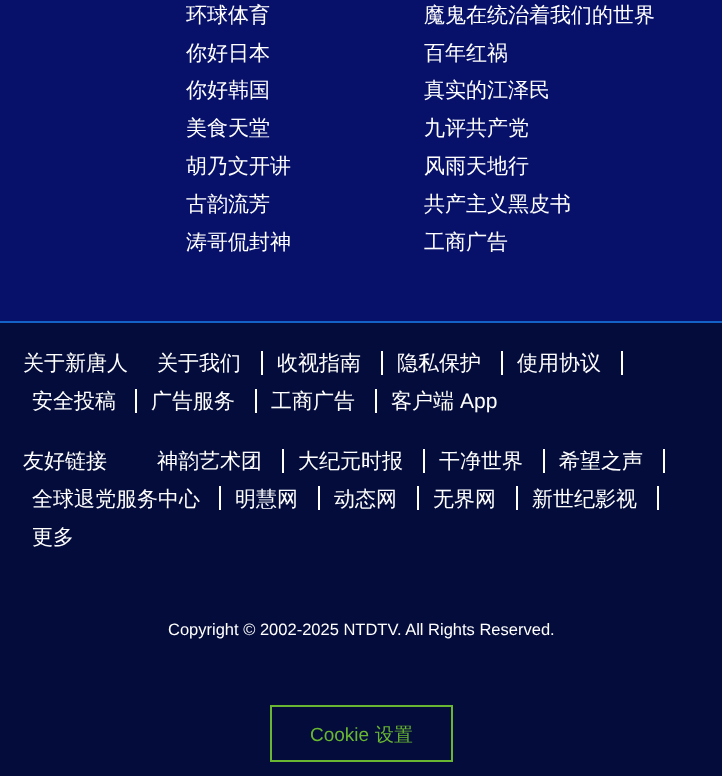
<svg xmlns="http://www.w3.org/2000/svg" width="722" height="776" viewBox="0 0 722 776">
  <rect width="100%" height="100%" fill="#07116a"/>
  <rect x="0" y="321" width="722" height="2" fill="#1462c7"/>
  <text x="186" y="22" font-family="WenQuanYi Zen Hei" font-size="21" font-weight="500" fill="#ffffff">环球体育</text>
  <text x="186" y="60" font-family="WenQuanYi Zen Hei" font-size="21" font-weight="500" fill="#ffffff">你好日本</text>
  <text x="186" y="97" font-family="WenQuanYi Zen Hei" font-size="21" font-weight="500" fill="#ffffff">你好韩国</text>
  <text x="186" y="135" font-family="WenQuanYi Zen Hei" font-size="21" font-weight="500" fill="#ffffff">美食天堂</text>
  <text x="186" y="173" font-family="WenQuanYi Zen Hei" font-size="21" font-weight="500" fill="#ffffff">胡乃文开讲</text>
  <text x="186" y="211" font-family="WenQuanYi Zen Hei" font-size="21" font-weight="500" fill="#ffffff">古韵流芳</text>
  <text x="186" y="249" font-family="WenQuanYi Zen Hei" font-size="21" font-weight="500" fill="#ffffff">涛哥侃封神</text>
  <text x="424" y="22" font-family="WenQuanYi Zen Hei" font-size="21" font-weight="500" fill="#ffffff">魔鬼在统治着我们的世界</text>
  <text x="424" y="60" font-family="WenQuanYi Zen Hei" font-size="21" font-weight="500" fill="#ffffff">百年红祸</text>
  <text x="424" y="97" font-family="WenQuanYi Zen Hei" font-size="21" font-weight="500" fill="#ffffff">真实的江泽民</text>
  <text x="424" y="135" font-family="WenQuanYi Zen Hei" font-size="21" font-weight="500" fill="#ffffff">九评共产党</text>
  <text x="424" y="173" font-family="WenQuanYi Zen Hei" font-size="21" font-weight="500" fill="#ffffff">风雨天地行</text>
  <text x="424" y="211" font-family="WenQuanYi Zen Hei" font-size="21" font-weight="500" fill="#ffffff">共产主义黑皮书</text>
  <text x="424" y="249" font-family="WenQuanYi Zen Hei" font-size="21" font-weight="500" fill="#ffffff">工商广告</text>
  <rect x="0" y="323" width="722" height="453" fill="#040c3b"/>
  <text x="23" y="370" font-family="WenQuanYi Zen Hei" font-size="21" font-weight="500" fill="#ffffff">关于新唐人</text>
  <rect x="261" y="351" width="2" height="24" fill="#ffffff"/>
  <text x="157" y="370" font-family="WenQuanYi Zen Hei" font-size="21" font-weight="500" fill="#ffffff">关于我们</text>
  <rect x="381" y="351" width="2" height="24" fill="#ffffff"/>
  <text x="277" y="370" font-family="WenQuanYi Zen Hei" font-size="21" font-weight="500" fill="#ffffff">收视指南</text>
  <rect x="501" y="351" width="2" height="24" fill="#ffffff"/>
  <text x="397" y="370" font-family="WenQuanYi Zen Hei" font-size="21" font-weight="500" fill="#ffffff">隐私保护</text>
  <rect x="621" y="351" width="2" height="24" fill="#ffffff"/>
  <text x="517" y="370" font-family="WenQuanYi Zen Hei" font-size="21" font-weight="500" fill="#ffffff">使用协议</text>
  <rect x="135" y="389" width="2" height="24" fill="#ffffff"/>
  <text x="32" y="408" font-family="WenQuanYi Zen Hei" font-size="21" font-weight="500" fill="#ffffff">安全投稿</text>
  <rect x="255" y="389" width="2" height="24" fill="#ffffff"/>
  <text x="151" y="408" font-family="WenQuanYi Zen Hei" font-size="21" font-weight="500" fill="#ffffff">广告服务</text>
  <rect x="375" y="389" width="2" height="24" fill="#ffffff"/>
  <text x="271" y="408" font-family="WenQuanYi Zen Hei" font-size="21" font-weight="500" fill="#ffffff">工商广告</text>
  <text x="391" y="408" font-family="WenQuanYi Zen Hei" font-size="21" font-weight="500" fill="#ffffff">客户端</text>
  <text x="460" y="408" font-family="Liberation Sans" font-size="21" fill="#ffffff">App</text>
  <text x="23" y="468" font-family="WenQuanYi Zen Hei" font-size="21" font-weight="500" fill="#ffffff">友好链接</text>
  <rect x="282" y="449" width="2" height="24" fill="#ffffff"/>
  <text x="157" y="468" font-family="WenQuanYi Zen Hei" font-size="21" font-weight="500" fill="#ffffff">神韵艺术团</text>
  <rect x="423" y="449" width="2" height="24" fill="#ffffff"/>
  <text x="298" y="468" font-family="WenQuanYi Zen Hei" font-size="21" font-weight="500" fill="#ffffff">大纪元时报</text>
  <rect x="543" y="449" width="2" height="24" fill="#ffffff"/>
  <text x="439" y="468" font-family="WenQuanYi Zen Hei" font-size="21" font-weight="500" fill="#ffffff">干净世界</text>
  <rect x="663" y="449" width="2" height="24" fill="#ffffff"/>
  <text x="559" y="468" font-family="WenQuanYi Zen Hei" font-size="21" font-weight="500" fill="#ffffff">希望之声</text>
  <rect x="219" y="486" width="2" height="24" fill="#ffffff"/>
  <text x="32" y="506" font-family="WenQuanYi Zen Hei" font-size="21" font-weight="500" fill="#ffffff">全球退党服务中心</text>
  <rect x="318" y="486" width="2" height="24" fill="#ffffff"/>
  <text x="235" y="506" font-family="WenQuanYi Zen Hei" font-size="21" font-weight="500" fill="#ffffff">明慧网</text>
  <rect x="417" y="486" width="2" height="24" fill="#ffffff"/>
  <text x="334" y="506" font-family="WenQuanYi Zen Hei" font-size="21" font-weight="500" fill="#ffffff">动态网</text>
  <rect x="516" y="486" width="2" height="24" fill="#ffffff"/>
  <text x="433" y="506" font-family="WenQuanYi Zen Hei" font-size="21" font-weight="500" fill="#ffffff">无界网</text>
  <rect x="657" y="486" width="2" height="24" fill="#ffffff"/>
  <text x="532" y="506" font-family="WenQuanYi Zen Hei" font-size="21" font-weight="500" fill="#ffffff">新世纪影视</text>
  <text x="32" y="544" font-family="WenQuanYi Zen Hei" font-size="21" font-weight="500" fill="#ffffff">更多</text>
  <text x="168" y="635" font-family="Liberation Sans" font-size="16.5" fill="#ffffff">Copyright © 2002-2025 NTDTV. All Rights Reserved.</text>
  <rect x="271" y="706" width="181" height="55" fill="none" stroke="#68b631" stroke-width="2"/>
  <text x="310" y="741" font-family="Liberation Sans" font-size="19" fill="#68b631">Cookie</text>
  <text x="375" y="741" font-family="WenQuanYi Zen Hei" font-size="19" font-weight="500" fill="#68b631">设置</text>
</svg>
